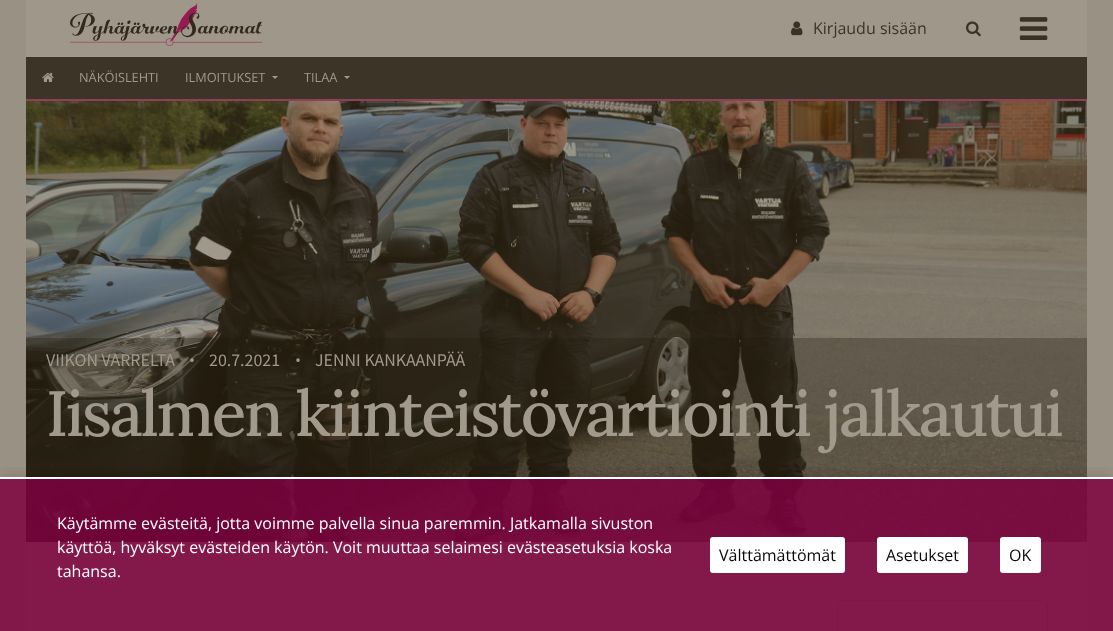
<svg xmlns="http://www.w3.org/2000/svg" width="1113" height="631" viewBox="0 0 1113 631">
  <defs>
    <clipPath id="clip1"><rect x="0" y="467" width="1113" height="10"/></clipPath>
    <filter id="blur1" x="-50%" y="-200%" width="200%" height="500%"><feGaussianBlur stdDeviation="8"/></filter>
  </defs>
  <rect width="100%" height="100%" fill="#999284"/>
  <rect x="26" y="0" width="1061" height="56" fill="#9f988a"/>
  <rect x="26" y="56" width="1061" height="1" fill="#a0998b"/>
  <image x="70" y="3" width="192" height="43" href="img1.png"/>
  <image x="791" y="21" width="12" height="15" href="img2.png"/>
  <text x="813" y="34" font-family="Open Sans" font-size="16" fill="#3b3325">Kirjaudu sisään</text>
  <image x="966" y="21" width="15" height="16" href="img3.png"/>
  <image x="1019" y="17" width="29" height="23" href="img4.png"/>
  <rect x="26" y="57" width="1061" height="42" fill="#3c3427"/>
  <rect x="26" y="99" width="1061" height="2" fill="#8c4059"/>
  <image x="42" y="72" width="12" height="10" href="img5.png"/>
  <text x="79" y="82" font-family="Open Sans" font-size="12.75" fill="#a1998b">NÄKÖISLEHTI</text>
  <text x="185" y="82" font-family="Open Sans" font-size="12.75" fill="#a1998b">ILMOITUKSET</text>
  <path d="M272 76H278L275 79Z" fill="#a1998b"/>
  <text x="304" y="82" font-family="Open Sans" font-size="12.75" fill="#a1998b">TILAA</text>
  <path d="M344 76H350L347 79Z" fill="#a1998b"/>
  <image x="26" y="101" width="1061" height="441" href="img6.png"/>
  <rect x="26" y="338" width="1061" height="31" fill="#211a0c" fill-opacity="0.3"/>
  <text x="46" y="366" font-family="Noto Sans JP" font-size="16" fill="#a1998b">VIIKON VARRELTA</text>
  <text x="189" y="366" font-family="Open Sans" font-size="16" fill="#a1998b">•</text>
  <text x="209" y="366" font-family="Noto Sans JP" font-size="16" fill="#a1998b">20.7.2021</text>
  <text x="295" y="366" font-family="Open Sans" font-size="16" fill="#a1998b">•</text>
  <text x="315" y="366" font-family="Noto Sans JP" font-size="16" fill="#a1998b">JENNI KANKAANPÄÄ</text>
  <rect x="26" y="369" width="1061" height="173" fill="#211a0c" fill-opacity="0.3"/>
  <text x="46" y="436" font-family="Lora" font-size="64" font-weight="500" letter-spacing="-2.4" fill="#a1998b">Iisalmen kiinteistövartiointi jalkautui</text>
  <rect x="26" y="542" width="1061" height="89" fill="#a1998b"/>
  <rect x="837.5" y="600.5" width="210" height="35" rx="3.5" fill="none" stroke="#888479"/>
  <g clip-path="url(#clip1)">
    <rect x="0" y="477" width="1113" height="154" fill="#000000" fill-opacity="0.2" filter="url(#blur1)"/>
  </g>
  <rect x="0" y="479" width="1113" height="152" fill="#7d003f" fill-opacity="0.84"/>
  <rect x="0" y="477" width="1113" height="2" fill="#ffffff"/>
  <text x="57" y="529" font-family="Open Sans" font-size="16" fill="#ffffff">Käytämme evästeitä, jotta voimme palvella sinua paremmin. Jatkamalla sivuston</text>
  <text x="57" y="553" font-family="Open Sans" font-size="16" fill="#ffffff">käyttöä, hyväksyt evästeiden käytön. Voit muuttaa selaimesi evästeasetuksia koska</text>
  <text x="57" y="577" font-family="Open Sans" font-size="16" fill="#ffffff">tahansa.</text>
  <rect x="710" y="537" width="135" height="36" rx="3" fill="#ffffff"/>
  <text x="719" y="561" font-family="Open Sans" font-size="16" fill="#0a0a0a">Välttämättömät</text>
  <rect x="877" y="537" width="91" height="36" rx="3" fill="#ffffff"/>
  <text x="886" y="561" font-family="Open Sans" font-size="16" fill="#0a0a0a">Asetukset</text>
  <rect x="1000" y="537" width="41" height="36" rx="3" fill="#ffffff"/>
  <text x="1009" y="561" font-family="Open Sans" font-size="16" fill="#0a0a0a">OK</text>
</svg>
